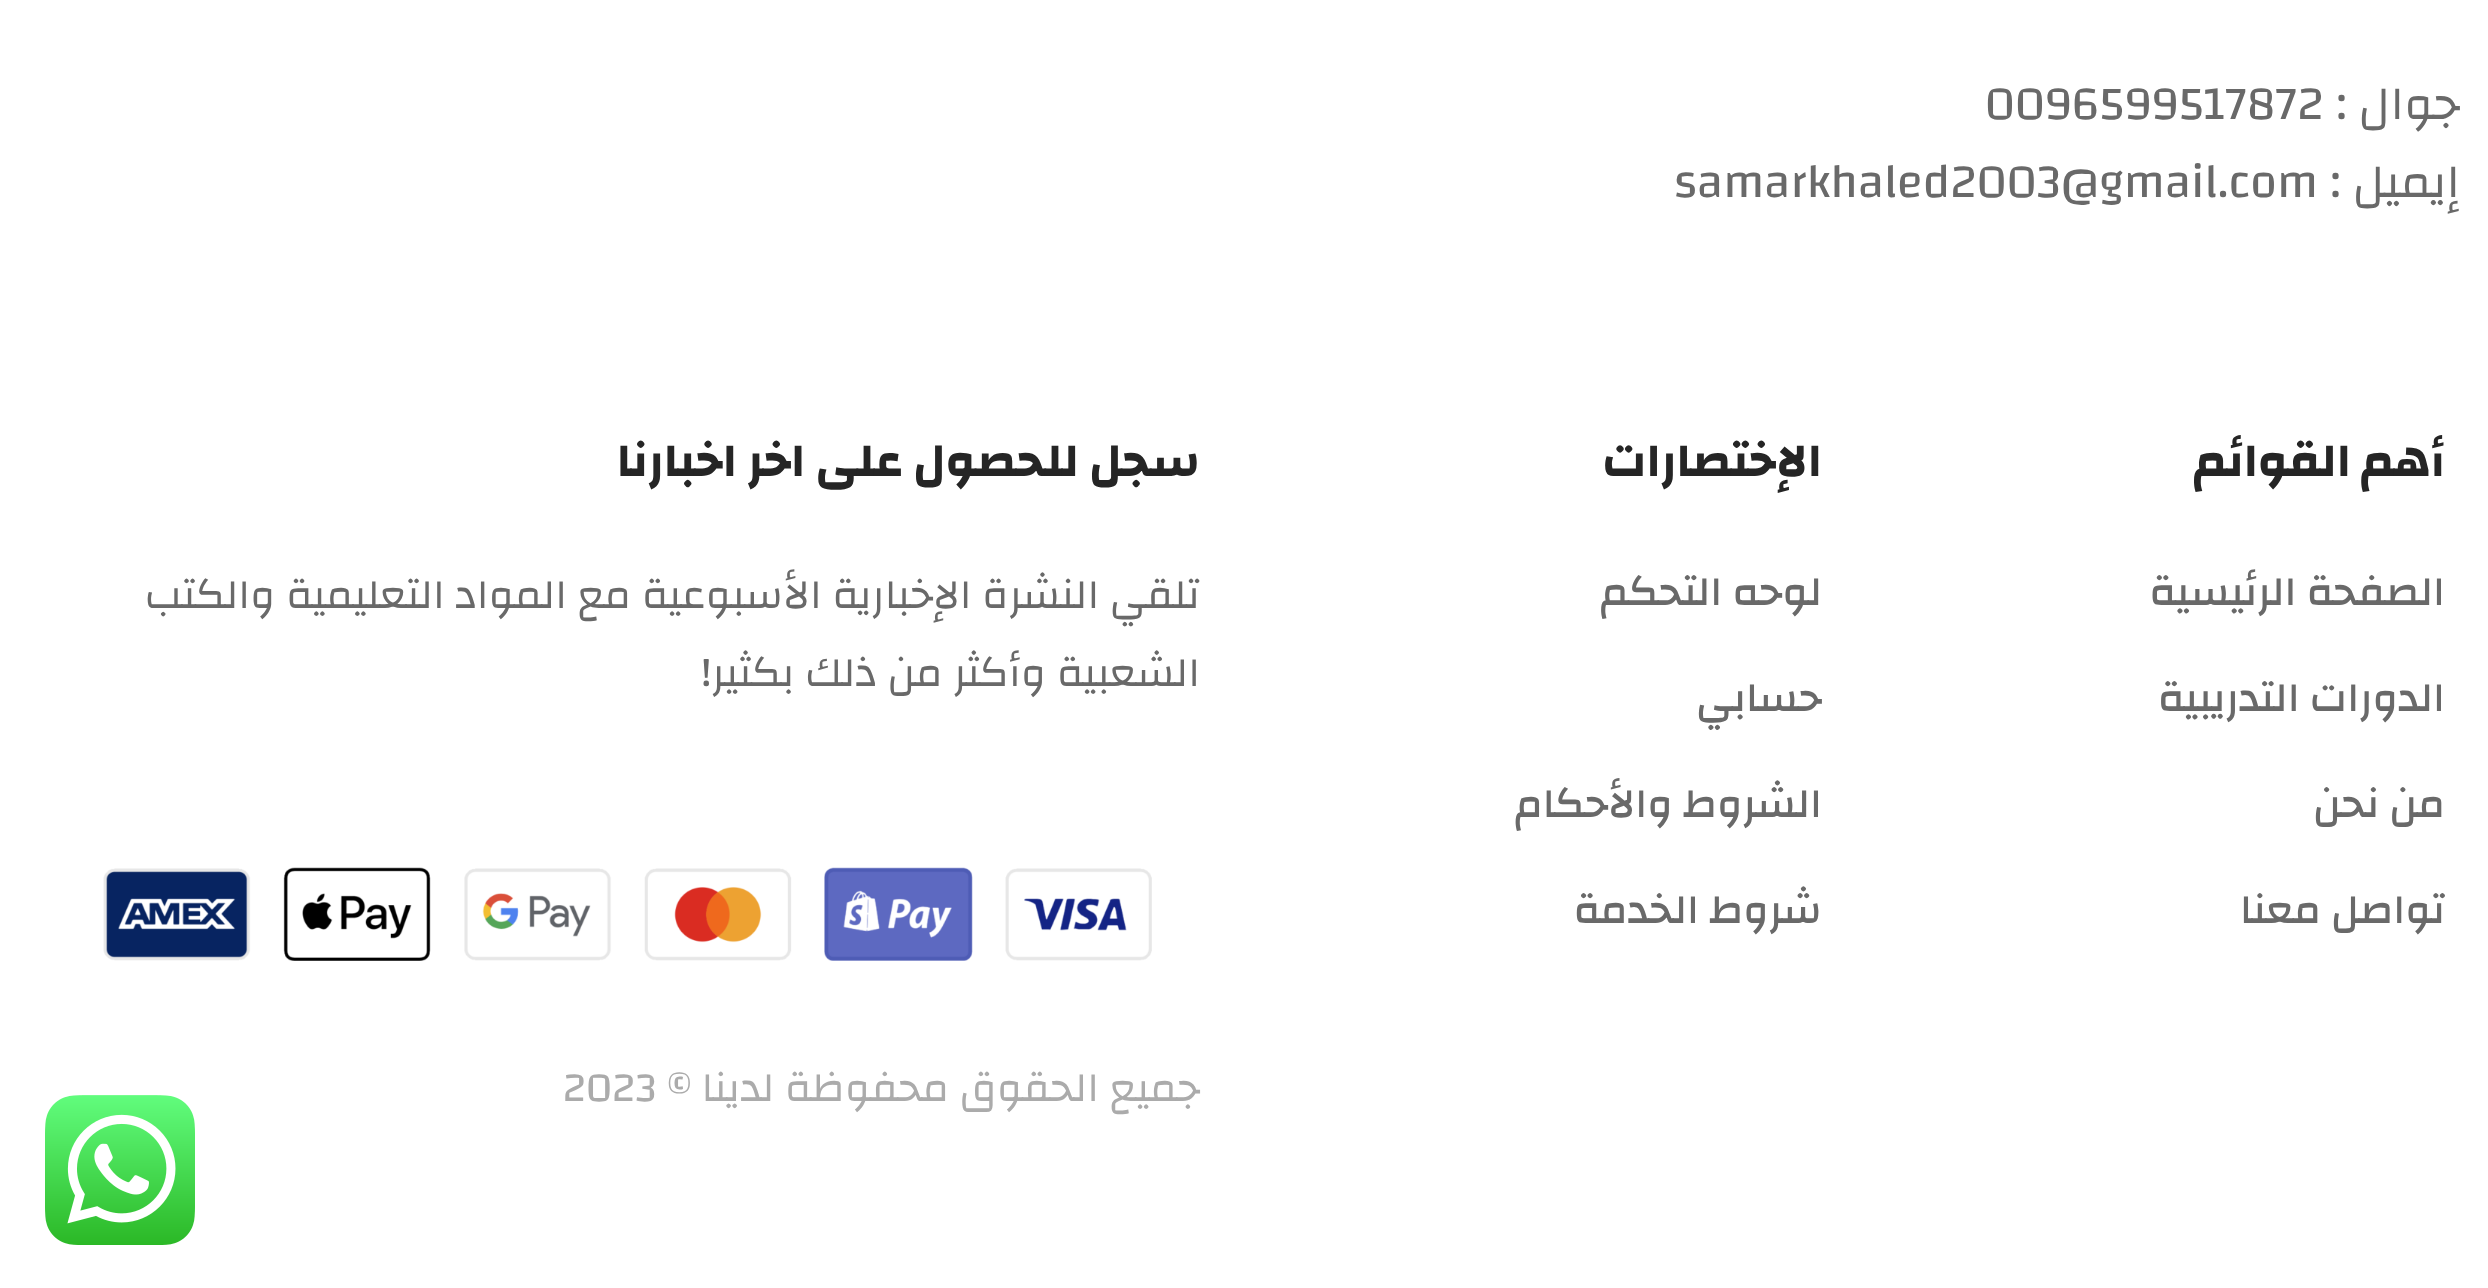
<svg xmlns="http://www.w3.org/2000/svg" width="2488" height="1288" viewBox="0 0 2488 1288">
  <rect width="100%" height="100%" fill="#ffffff"/>
  <text x="2460" y="119" font-family="Changa" font-size="48" direction="rtl" fill="#696969">جوال :</text>
  <text x="1985" y="119" font-family="Changa" font-size="48" fill="#696969">0096599517872</text>
  <text x="2460" y="197" font-family="Changa" font-size="48" direction="rtl" fill="#696969">إيميل :</text>
  <text x="1674" y="197" font-family="Changa" font-size="48" fill="#696969">samarkhaled2003@gmail.com</text>
  <text x="2445" y="476" font-family="Changa" font-size="48" font-weight="bold" direction="rtl" fill="#252525">أهم القوائم</text>
  <text x="2445" y="605" font-family="Changa" font-size="42" font-weight="500" direction="rtl" fill="#696969">الصفحة الرئيسية</text>
  <text x="2445" y="711" font-family="Changa" font-size="42" font-weight="500" direction="rtl" fill="#696969">الدورات التدريبية</text>
  <text x="2445" y="817" font-family="Changa" font-size="42" font-weight="500" direction="rtl" fill="#696969">من نحن</text>
  <text x="2445" y="923" font-family="Changa" font-size="42" font-weight="500" direction="rtl" fill="#696969">تواصل معنا</text>
  <text x="1822" y="476" font-family="Changa" font-size="48" font-weight="bold" direction="rtl" fill="#252525">الإختصارات</text>
  <text x="1822" y="605" font-family="Changa" font-size="42" font-weight="500" direction="rtl" fill="#696969">لوحه التحكم</text>
  <text x="1822" y="711" font-family="Changa" font-size="42" font-weight="500" direction="rtl" fill="#696969">حسابي</text>
  <text x="1822" y="817" font-family="Changa" font-size="42" font-weight="500" direction="rtl" fill="#696969">الشروط والأحكام</text>
  <text x="1822" y="923" font-family="Changa" font-size="42" font-weight="500" direction="rtl" fill="#696969">شروط الخدمة</text>
  <text x="1200" y="476" font-family="Changa" font-size="48" font-weight="bold" direction="rtl" fill="#252525">سجل للحصول على اخر اخبارنا</text>
  <text x="1200" y="608" font-family="Changa" font-size="42" direction="rtl" fill="#696969">تلقي النشرة الإخبارية الأسبوعية مع المواد التعليمية والكتب</text>
  <text x="1200" y="686" font-family="Changa" font-size="42" direction="rtl" fill="#696969">الشعبية وأكثر من ذلك بكثير!</text>
  <image x="103" y="867" width="1049" height="94" href="img1.png"/>
  <text x="1200" y="1101" font-family="Changa" font-size="42" direction="rtl" fill="#ababab">جميع الحقوق محفوظة لدينا ©</text>
  <text x="563" y="1101" font-family="Changa" font-size="42" fill="#ababab">2023</text>
  <image x="45" y="1095" width="150" height="150" href="img2.png"/>
</svg>
